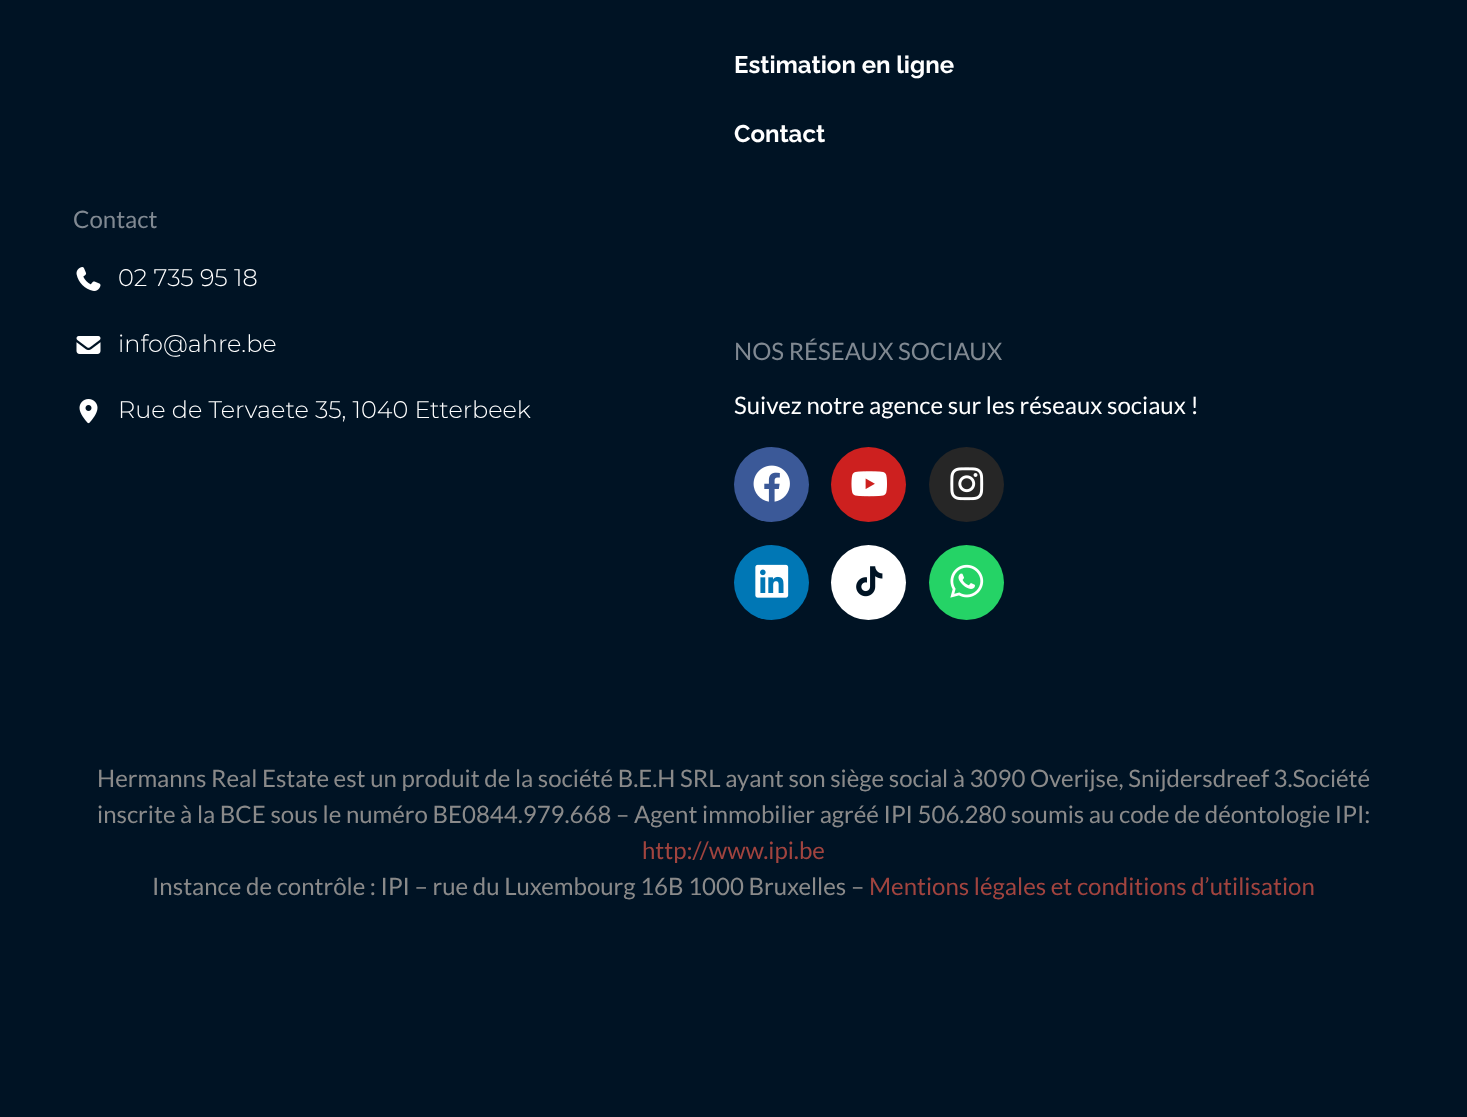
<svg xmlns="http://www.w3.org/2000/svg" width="1467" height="1117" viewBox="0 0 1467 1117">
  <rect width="100%" height="100%" fill="#001324"/>
  <text x="734" y="73" font-family="Raleway" font-size="24" font-weight="bold" fill="#ffffff">Estimation en ligne</text>
  <text x="734" y="142" font-family="Raleway" font-size="24" font-weight="bold" fill="#ffffff">Contact</text>
  <text x="73" y="228" font-family="Lato" font-size="24" fill="#808992">Contact</text>
  <image x="76" y="267" width="25" height="24" href="img1.png"/>
  <text x="118" y="286" font-family="Montserrat" font-size="24" font-weight="300" fill="#ffffff">02 735 95 18</text>
  <image x="76" y="336" width="25" height="18" href="img2.png"/>
  <text x="118" y="352" font-family="Montserrat" font-size="24" font-weight="300" fill="#ffffff">info@ahre.be</text>
  <image x="79" y="399" width="19" height="25" href="img3.png"/>
  <text x="118" y="418" font-family="Montserrat" font-size="24" font-weight="300" fill="#ffffff">Rue de Tervaete 35, 1040 Etterbeek</text>
  <text x="734" y="360" font-family="Lato" font-size="24" fill="#808992">NOS RÉSEAUX SOCIAUX</text>
  <text x="734" y="414" font-family="Lato" font-size="24" fill="#ffffff">Suivez notre agence sur les réseaux sociaux !</text>
  <circle cx="771.5" cy="484.5" r="37.5" fill="#3b5998"/>
  <image x="753" y="465" width="37" height="37" href="img4.png"/>
  <circle cx="868.5" cy="484.5" r="37.5" fill="#cd201f"/>
  <image x="851" y="471" width="36" height="26" href="img5.png"/>
  <circle cx="966.5" cy="484.5" r="37.5" fill="#262626"/>
  <image x="950" y="467" width="34" height="34" href="img6.png"/>
  <circle cx="771.5" cy="582.5" r="37.5" fill="#0077b5"/>
  <image x="755" y="564" width="34" height="34" href="img7.png"/>
  <circle cx="868.5" cy="582.5" r="37.5" fill="#ffffff"/>
  <image x="856" y="566" width="27" height="31" href="img8.png"/>
  <circle cx="966.5" cy="582.5" r="37.5" fill="#25d366"/>
  <image x="950" y="564" width="34" height="34" href="img9.png"/>
  <text x="97" y="787" font-family="Lato" font-size="24" fill="#8a8a8a">Hermanns Real Estate est un produit de la société B.E.H SRL ayant son siège social à 3090 Overijse, Snijdersdreef 3.Société</text>
  <text x="97" y="823" font-family="Lato" font-size="24" fill="#8a8a8a">inscrite à la BCE sous le numéro BE0844.979.668 – Agent immobilier agréé IPI 506.280 soumis au code de déontologie IPI:</text>
  <text x="642" y="859" font-family="Lato" font-size="24" fill="#a1443f">http://www.ipi.be</text>
  <text x="152" y="895" font-family="Lato" font-size="24" fill="#8a8a8a">Instance de contrôle : IPI – rue du Luxembourg 16B 1000 Bruxelles –</text>
  <text x="869" y="895" font-family="Lato" font-size="24" fill="#a1443f">Mentions légales et conditions d’utilisation</text>
</svg>
